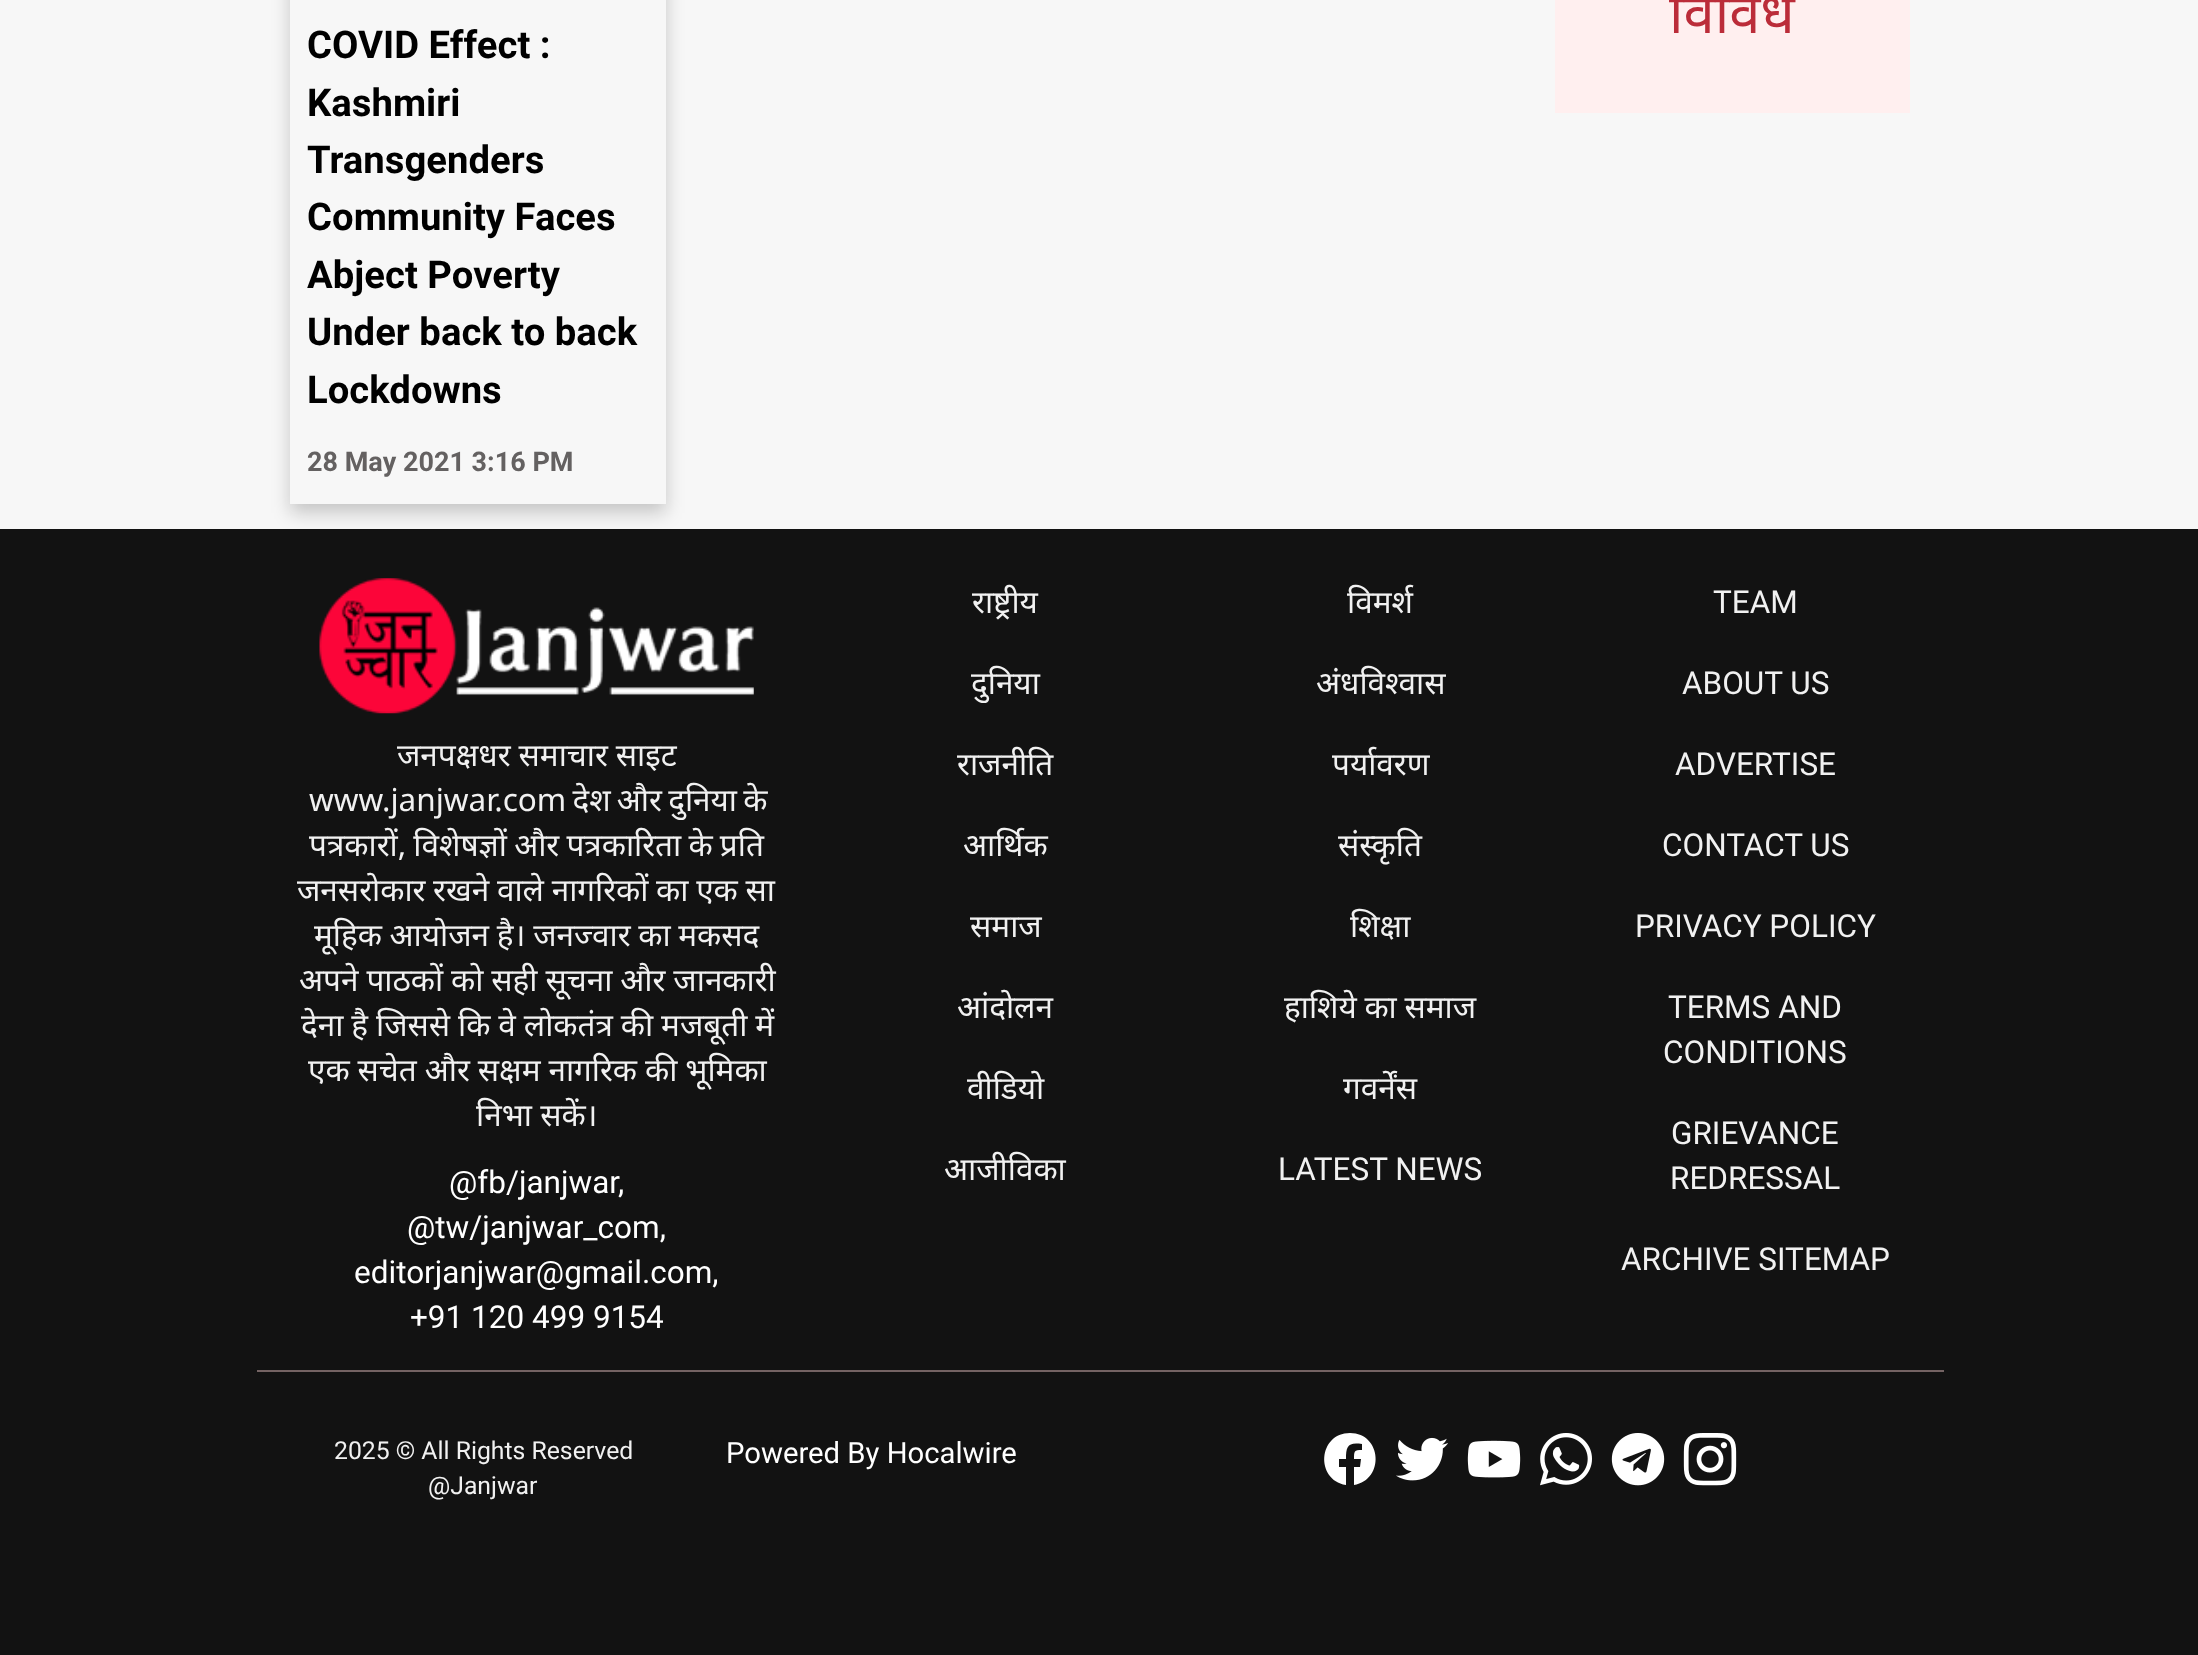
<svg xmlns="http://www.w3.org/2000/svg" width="2198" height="1655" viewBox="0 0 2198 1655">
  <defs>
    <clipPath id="clip1"><path d="M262 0H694V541H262ZM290-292H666V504H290Z" clip-rule="evenodd"/></clipPath>
    <filter id="blur1" x="-50%" y="-200%" width="200%" height="500%"><feGaussianBlur stdDeviation="9"/></filter>
  </defs>
  <rect width="100%" height="100%" fill="#f7f7f7"/>
  <rect x="1555" y="0" width="355" height="113" fill="#ffefef"/>
  <text x="1669" y="33" font-family="Noto Sans" font-size="56" fill="#bb2c39">विविध</text>
  <g clip-path="url(#clip1)">
    <rect x="290" y="-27" width="376" height="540" fill="#000000" fill-opacity="0.2" filter="url(#blur1)"/>
  </g>
  <text x="307" y="58" font-family="Roboto" font-size="38.25" font-weight="bold" fill="#000000">COVID Effect :</text>
  <text x="307" y="116" font-family="Roboto" font-size="38.25" font-weight="bold" fill="#000000">Kashmiri</text>
  <text x="307" y="173" font-family="Roboto" font-size="38.25" font-weight="bold" fill="#000000">Transgenders</text>
  <text x="307" y="230" font-family="Roboto" font-size="38.25" font-weight="bold" fill="#000000">Community Faces</text>
  <text x="307" y="288" font-family="Roboto" font-size="38.25" font-weight="bold" fill="#000000">Abject Poverty</text>
  <text x="307" y="345" font-family="Roboto" font-size="38.25" font-weight="bold" fill="#000000">Under back to back</text>
  <text x="307" y="403" font-family="Roboto" font-size="38.25" font-weight="bold" fill="#000000">Lockdowns</text>
  <text x="307" y="471" font-family="Roboto" font-size="27" font-weight="bold" fill="#646161">28 May 2021 3:16 PM</text>
  <rect x="0" y="529" width="2198" height="1126" fill="#121212"/>
  <rect x="257" y="1370" width="1687" height="2" fill="#746363"/>
  <image x="319" y="578" width="435" height="136" href="img1.png"/>
  <text x="397" y="766" word-spacing="-0.25" font-family="Noto Sans" font-size="31.5" fill="#f1f1f1">जनपक्षधर समाचार साइट</text>
  <text x="309" y="811" word-spacing="-2" font-family="Noto Sans" font-size="31.5" fill="#f1f1f1">www.janjwar.com देश और दुनिया के</text>
  <text x="309" y="856" word-spacing="-1" font-family="Noto Sans" font-size="31.5" fill="#f1f1f1">पत्रकारों, विशेषज्ञों और पत्रकारिता के प्रति</text>
  <text x="297" y="901" word-spacing="-0.5" font-family="Noto Sans" font-size="31.5" fill="#f1f1f1">जनसरोकार रखने वाले नागरिकों का एक सा</text>
  <text x="314" y="946" word-spacing="-0.5" font-family="Noto Sans" font-size="31.5" fill="#f1f1f1">मूहिक आयोजन है। जनज्वार का मकसद</text>
  <text x="299" y="991" word-spacing="-0.25" font-family="Noto Sans" font-size="31.5" fill="#f1f1f1">अपने पाठकों को सही सूचना और जानकारी</text>
  <text x="301" y="1036" word-spacing="-0.25" font-family="Noto Sans" font-size="31.5" fill="#f1f1f1">देना है जिससे कि वे लोकतंत्र की मजबूती में</text>
  <text x="308" y="1081" word-spacing="-0.25" font-family="Noto Sans" font-size="31.5" fill="#f1f1f1">एक सचेत और सक्षम नागरिक की भूमिका</text>
  <text x="476" y="1126" font-family="Noto Sans" font-size="31.5" fill="#f1f1f1">निभा सकें।</text>
  <text x="449" y="1193" font-family="Roboto" font-size="31.5" fill="#ffffff">@fb/janjwar,</text>
  <text x="407" y="1238" font-family="Roboto" font-size="31.5" fill="#ffffff">@tw/janjwar_com,</text>
  <text x="354" y="1283" font-family="Roboto" font-size="31.5" fill="#ffffff">editorjanjwar@gmail.com,</text>
  <text x="410" y="1328" font-family="Roboto" font-size="31.5" fill="#ffffff">+91 120 499 9154</text>
  <text x="972" y="613" font-family="Noto Sans" font-size="31.5" fill="#f1f1f1">राष्ट्रीय</text>
  <text x="971" y="694" font-family="Noto Sans" font-size="31.5" fill="#f1f1f1">दुनिया</text>
  <text x="957" y="775" font-family="Noto Sans" font-size="31.5" fill="#f1f1f1">राजनीति</text>
  <text x="963" y="856" font-family="Noto Sans" font-size="31.5" fill="#f1f1f1">आर्थिक</text>
  <text x="970" y="937" font-family="Noto Sans" font-size="31.5" fill="#f1f1f1">समाज</text>
  <text x="957" y="1018" font-family="Noto Sans" font-size="31.5" fill="#f1f1f1">आंदोलन</text>
  <text x="967" y="1099" font-family="Noto Sans" font-size="31.5" fill="#f1f1f1">वीडियो</text>
  <text x="944" y="1180" font-family="Noto Sans" font-size="31.5" fill="#f1f1f1">आजीविका</text>
  <text x="1347" y="613" font-family="Noto Sans" font-size="31.5" fill="#f1f1f1">विमर्श</text>
  <text x="1316" y="694" font-family="Noto Sans" font-size="31.5" fill="#f1f1f1">अंधविश्वास</text>
  <text x="1332" y="775" font-family="Noto Sans" font-size="31.5" fill="#f1f1f1">पर्यावरण</text>
  <text x="1338" y="856" font-family="Noto Sans" font-size="31.5" fill="#f1f1f1">संस्कृति</text>
  <text x="1350" y="937" font-family="Noto Sans" font-size="31.5" fill="#f1f1f1">शिक्षा</text>
  <text x="1284" y="1018" word-spacing="-0.5" font-family="Noto Sans" font-size="31.5" fill="#f1f1f1">हाशिये का समाज</text>
  <text x="1343" y="1099" font-family="Noto Sans" font-size="31.5" fill="#f1f1f1">गवर्नेंस</text>
  <text x="1278" y="1180" font-family="Roboto" font-size="31.5" fill="#f1f1f1">LATEST NEWS</text>
  <text x="1713" y="613" font-family="Roboto" font-size="31.5" fill="#f1f1f1">TEAM</text>
  <text x="1682" y="694" font-family="Roboto" font-size="31.5" fill="#f1f1f1">ABOUT US</text>
  <text x="1675" y="775" font-family="Roboto" font-size="31.5" fill="#f1f1f1">ADVERTISE</text>
  <text x="1662" y="856" font-family="Roboto" font-size="31.5" fill="#f1f1f1">CONTACT US</text>
  <text x="1635" y="937" font-family="Roboto" font-size="31.5" fill="#f1f1f1">PRIVACY POLICY</text>
  <text x="1668" y="1018" font-family="Roboto" font-size="31.5" fill="#f1f1f1">TERMS AND</text>
  <text x="1663" y="1063" font-family="Roboto" font-size="31.5" fill="#f1f1f1">CONDITIONS</text>
  <text x="1671" y="1144" font-family="Roboto" font-size="31.5" fill="#f1f1f1">GRIEVANCE</text>
  <text x="1670" y="1189" font-family="Roboto" font-size="31.5" fill="#f1f1f1">REDRESSAL</text>
  <text x="1621" y="1270" font-family="Roboto" font-size="31.5" fill="#f1f1f1">ARCHIVE SITEMAP</text>
  <text x="334" y="1459" font-family="Roboto" font-size="24.75" fill="#f1f1f1">2025 © All Rights Reserved</text>
  <text x="428" y="1494" font-family="Roboto" font-size="24.75" fill="#f1f1f1">@Janjwar</text>
  <text x="726" y="1463" font-family="Roboto" font-size="29.25" fill="#ffffff">Powered By Hocalwire</text>
  <path d="M1350 1433C1318 1433 1315 1480 1346 1485V1467H1339V1459H1346C1346 1446 1348 1442 1362 1444V1450C1354 1450 1354 1451 1354 1459H1361L1360 1467H1354V1485C1385 1480 1382 1433 1350 1433Z" fill="#ffffff"/>
  <image x="1396" y="1437" width="52" height="44" href="img2.png"/>
  <image x="1467" y="1440" width="54" height="38" href="img3.png"/>
  <image x="1540" y="1433" width="52" height="53" href="img4.png"/>
  <image x="1611" y="1433" width="54" height="53" href="img5.png"/>
  <image x="1683" y="1433" width="54" height="53" href="img6.png"/>
</svg>
